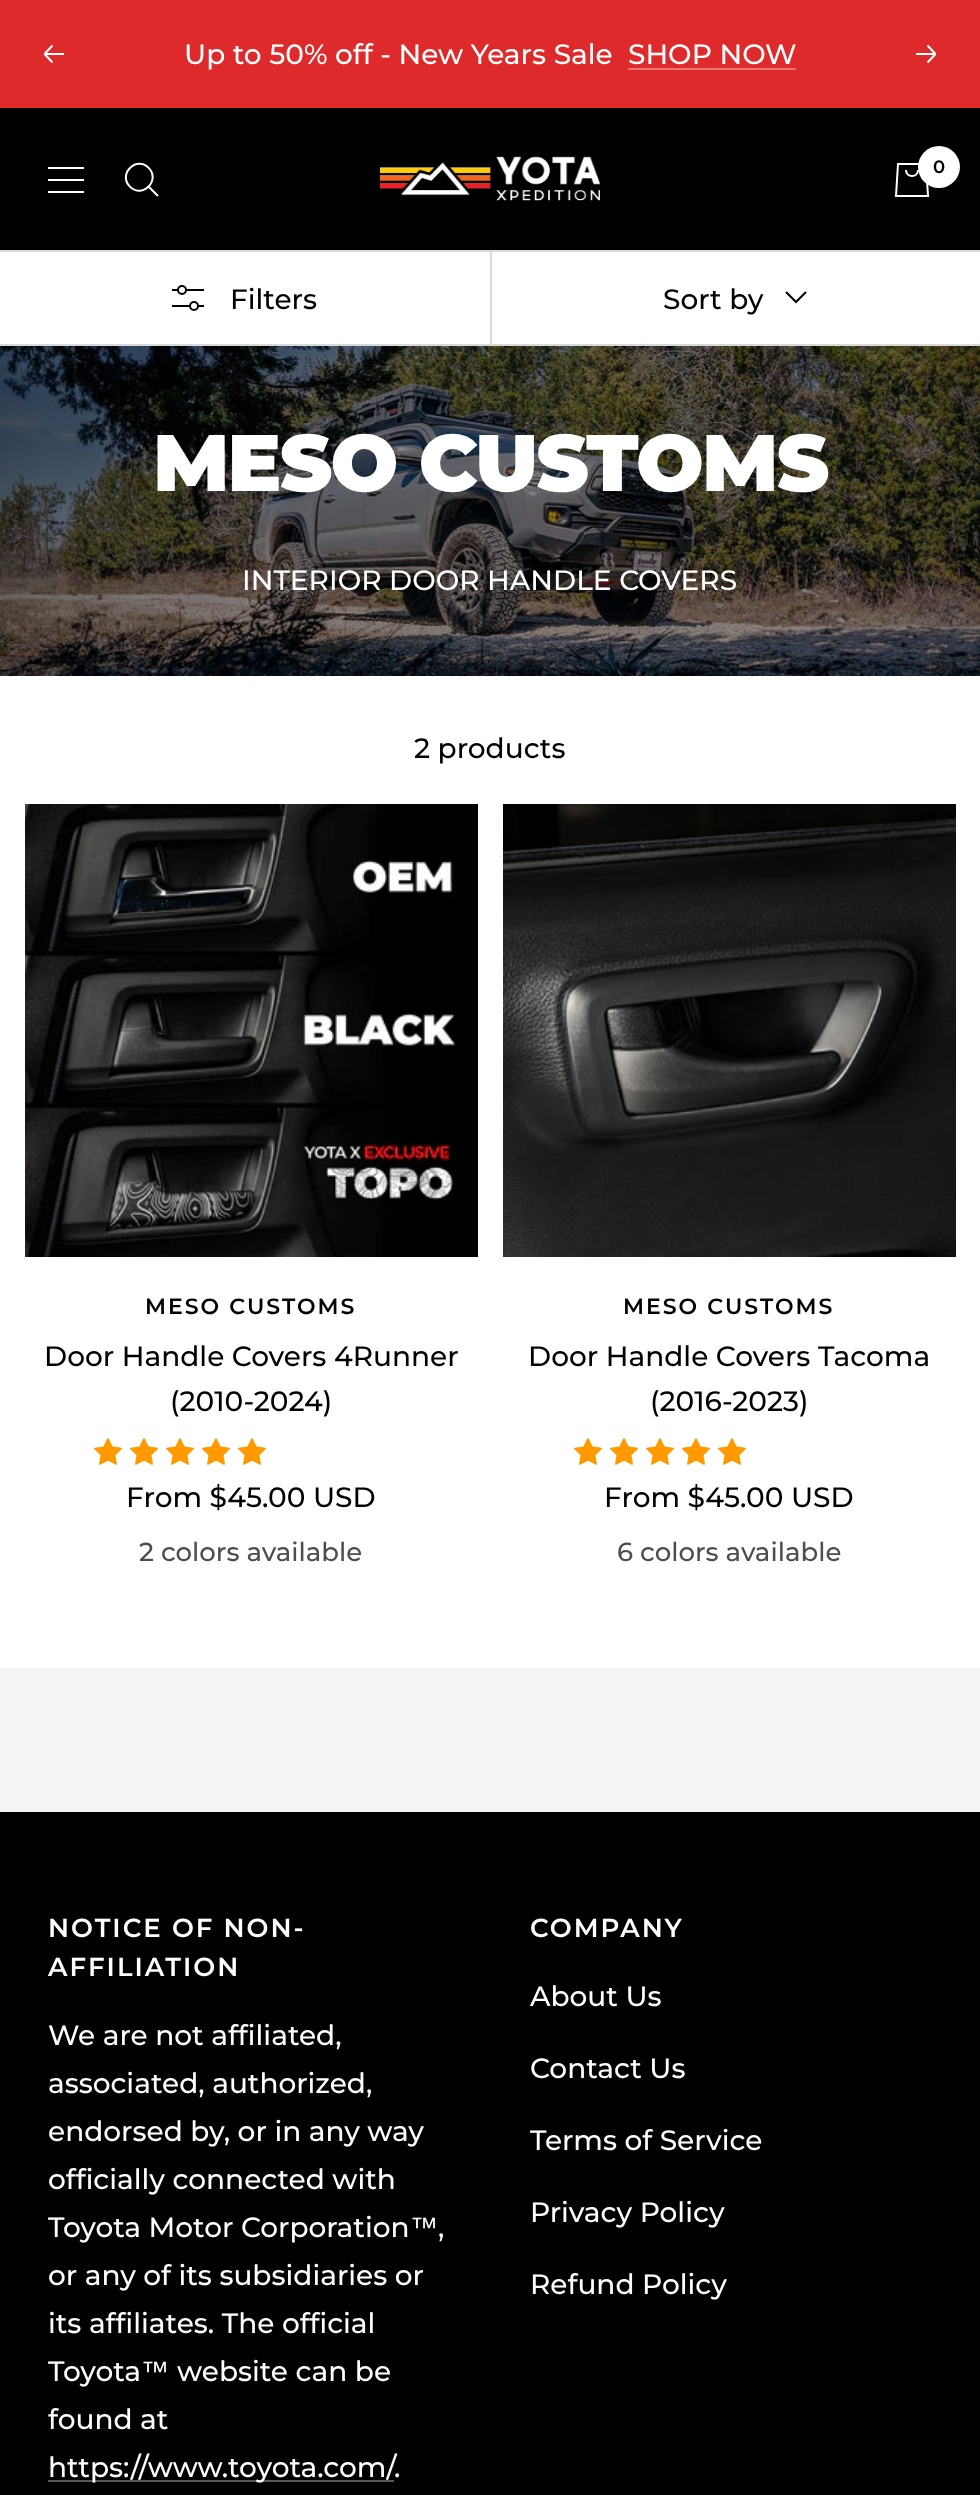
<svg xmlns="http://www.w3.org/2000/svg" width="980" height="2495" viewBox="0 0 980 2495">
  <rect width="100%" height="100%" fill="#ffffff"/>
  <rect x="0" y="0" width="980" height="108" fill="#de2a2a"/>
  <path d="M64 54H44.5M44.5 54L52.5 62.5M44.5 54L52.5 45.5" fill="none" stroke="#ffffff" stroke-width="2"/>
  <text x="184" y="64" font-family="Montserrat" font-size="28" font-weight="500" fill="#ffffff">Up to 50% off - New Years Sale</text>
  <text x="628" y="64" font-family="Montserrat" font-size="28" font-weight="500" fill="#ffffff">SHOP NOW</text>
  <rect x="628" y="68" width="168" height="2" fill="#ea7575"/>
  <path d="M916 54H935.5M935.5 54L927.5 62.5M935.5 54L927.5 45.5" fill="none" stroke="#ffffff" stroke-width="2"/>
  <rect x="0" y="108" width="980" height="142" fill="#000000"/>
  <path d="M48 168H84M48 192H84ZM48 180H84Z" fill="none" stroke="#ffffff" stroke-width="2"/>
  <path d="M148.5 186.5C161 174 142.5 155.5 130 168C117.5 180.5 136 199 148.5 186.5ZM148.5 186.5L158 196" fill="none" stroke="#ffffff" stroke-width="2"/>
  <image x="380" y="156" width="220" height="45" href="img1.png"/>
  <path d="M898 164H926L928 196H896ZM906 170C906 178 918 178 918 170" fill="none" stroke="#ffffff" stroke-width="2"/>
  <circle cx="939" cy="167" r="21" fill="#ffffff"/>
  <text x="933" y="173" font-family="Montserrat" font-size="18" font-weight="600" fill="#000000">0</text>
  <rect x="0" y="250" width="980" height="2" fill="#d9d9d9"/>
  <rect x="0" y="344" width="980" height="2" fill="#d9d9d9"/>
  <path d="M172 290H204M172 306H204" fill="none" stroke="#000000" stroke-width="2"/>
  <circle cx="182" cy="290" r="4" fill="#ffffff" stroke="#000000" stroke-width="2"/>
  <circle cx="194" cy="306" r="4" fill="#ffffff" stroke="#000000" stroke-width="2"/>
  <text x="230" y="309" font-family="Montserrat" font-size="28" font-weight="500" fill="#000000">Filters</text>
  <rect x="490" y="250" width="2" height="96" fill="#d9d9d9"/>
  <text x="663" y="309" font-family="Montserrat" font-size="28" font-weight="500" fill="#000000">Sort by</text>
  <path d="M786 292L796 302L806 292" fill="none" stroke="#000000" stroke-width="2"/>
  <image x="0" y="346" width="980" height="330" href="img2.png"/>
  <text x="153" y="491" font-family="Montserrat" font-size="80" font-weight="900" letter-spacing="-1.75" fill="#ffffff">MESO CUSTOMS</text>
  <text x="242" y="590" font-family="Montserrat" font-size="28" font-weight="500" fill="#ffffff">INTERIOR DOOR HANDLE COVERS</text>
  <text x="414" y="758" font-family="Montserrat" font-size="28" font-weight="500" fill="#000000">2 products</text>
  <image x="25" y="804" width="453" height="453" href="img3.png"/>
  <text x="145" y="1314" font-family="Montserrat" font-size="22" font-weight="600" letter-spacing="2" fill="#000000">MESO CUSTOMS</text>
  <text x="44" y="1366" font-family="Montserrat" font-size="28" font-weight="500" fill="#000000">Door Handle Covers 4Runner</text>
  <text x="170" y="1411" font-family="Montserrat" font-size="28" font-weight="500" fill="#000000">(2010-2024)</text>
  <image x="94" y="1438" width="28" height="27" href="img4.png"/>
  <image x="130" y="1438" width="28" height="27" href="img4.png"/>
  <image x="166" y="1438" width="28" height="27" href="img4.png"/>
  <image x="202" y="1438" width="28" height="27" href="img4.png"/>
  <image x="238" y="1438" width="28" height="27" href="img4.png"/>
  <text x="126" y="1507" font-family="Montserrat" font-size="28" font-weight="500" fill="#000000">From $45.00 USD</text>
  <text x="139" y="1561" font-family="Montserrat" font-size="26" font-weight="500" fill="#4d4d4d">2 colors available</text>
  <image x="503" y="804" width="453" height="453" href="img5.png"/>
  <text x="623" y="1314" font-family="Montserrat" font-size="22" font-weight="600" letter-spacing="2" fill="#000000">MESO CUSTOMS</text>
  <text x="528" y="1366" font-family="Montserrat" font-size="28" font-weight="500" fill="#000000">Door Handle Covers Tacoma</text>
  <text x="650" y="1411" font-family="Montserrat" font-size="28" font-weight="500" fill="#000000">(2016-2023)</text>
  <image x="574" y="1438" width="28" height="27" href="img4.png"/>
  <image x="610" y="1438" width="28" height="27" href="img4.png"/>
  <image x="646" y="1438" width="28" height="27" href="img4.png"/>
  <image x="682" y="1438" width="28" height="27" href="img4.png"/>
  <image x="718" y="1438" width="28" height="27" href="img4.png"/>
  <text x="604" y="1507" font-family="Montserrat" font-size="28" font-weight="500" fill="#000000">From $45.00 USD</text>
  <text x="617" y="1561" font-family="Montserrat" font-size="26" font-weight="500" fill="#4d4d4d">6 colors available</text>
  <rect x="0" y="1668" width="980" height="144" fill="#f5f5f5"/>
  <rect x="0" y="1812" width="980" height="683" fill="#000000"/>
  <text x="48" y="1937" font-family="Montserrat" font-size="26" font-weight="600" letter-spacing="2" fill="#ffffff">NOTICE OF NON-</text>
  <text x="48" y="1976" font-family="Montserrat" font-size="26" font-weight="600" letter-spacing="2" fill="#ffffff">AFFILIATION</text>
  <text x="48" y="2045" font-family="Montserrat" font-size="28" font-weight="500" fill="#ffffff">We are not affiliated,</text>
  <text x="48" y="2093" font-family="Montserrat" font-size="28" font-weight="500" fill="#ffffff">associated, authorized,</text>
  <text x="48" y="2141" font-family="Montserrat" font-size="28" font-weight="500" fill="#ffffff">endorsed by, or in any way</text>
  <text x="48" y="2189" font-family="Montserrat" font-size="28" font-weight="500" fill="#ffffff">officially connected with</text>
  <text x="48" y="2237" font-family="Montserrat" font-size="28" font-weight="500" fill="#ffffff">Toyota Motor Corporation</text>
  <text x="410" y="2237" font-family="Liberation Sans" font-size="28" fill="#ffffff">™</text>
  <text x="438" y="2237" font-family="Montserrat" font-size="28" font-weight="500" fill="#ffffff">,</text>
  <text x="48" y="2285" font-family="Montserrat" font-size="28" font-weight="500" fill="#ffffff">or any of its subsidiaries or</text>
  <text x="48" y="2333" font-family="Montserrat" font-size="28" font-weight="500" fill="#ffffff">its affiliates. The official</text>
  <text x="48" y="2381" font-family="Montserrat" font-size="28" font-weight="500" fill="#ffffff">Toyota</text>
  <text x="141" y="2381" font-family="Liberation Sans" font-size="28" fill="#ffffff">™</text>
  <text x="177" y="2381" font-family="Montserrat" font-size="28" font-weight="500" fill="#ffffff">website can be</text>
  <text x="48" y="2429" font-family="Montserrat" font-size="28" font-weight="500" fill="#ffffff">found at</text>
  <rect x="48" y="2480" width="346" height="2" fill="#595959"/>
  <text x="48" y="2477" font-family="Montserrat" font-size="28" font-weight="500" fill="#ffffff">https://www.toyota.com/</text>
  <text x="394" y="2477" font-family="Montserrat" font-size="28" font-weight="500" fill="#ffffff">.</text>
  <text x="530" y="1937" font-family="Montserrat" font-size="26" font-weight="600" letter-spacing="2" fill="#ffffff">COMPANY</text>
  <text x="530" y="2006" font-family="Montserrat" font-size="28" font-weight="500" fill="#ffffff">About Us</text>
  <text x="530" y="2078" font-family="Montserrat" font-size="28" font-weight="500" fill="#ffffff">Contact Us</text>
  <text x="530" y="2150" font-family="Montserrat" font-size="28" font-weight="500" fill="#ffffff">Terms of Service</text>
  <text x="530" y="2222" font-family="Montserrat" font-size="28" font-weight="500" fill="#ffffff">Privacy Policy</text>
  <text x="530" y="2294" font-family="Montserrat" font-size="28" font-weight="500" fill="#ffffff">Refund Policy</text>
</svg>
